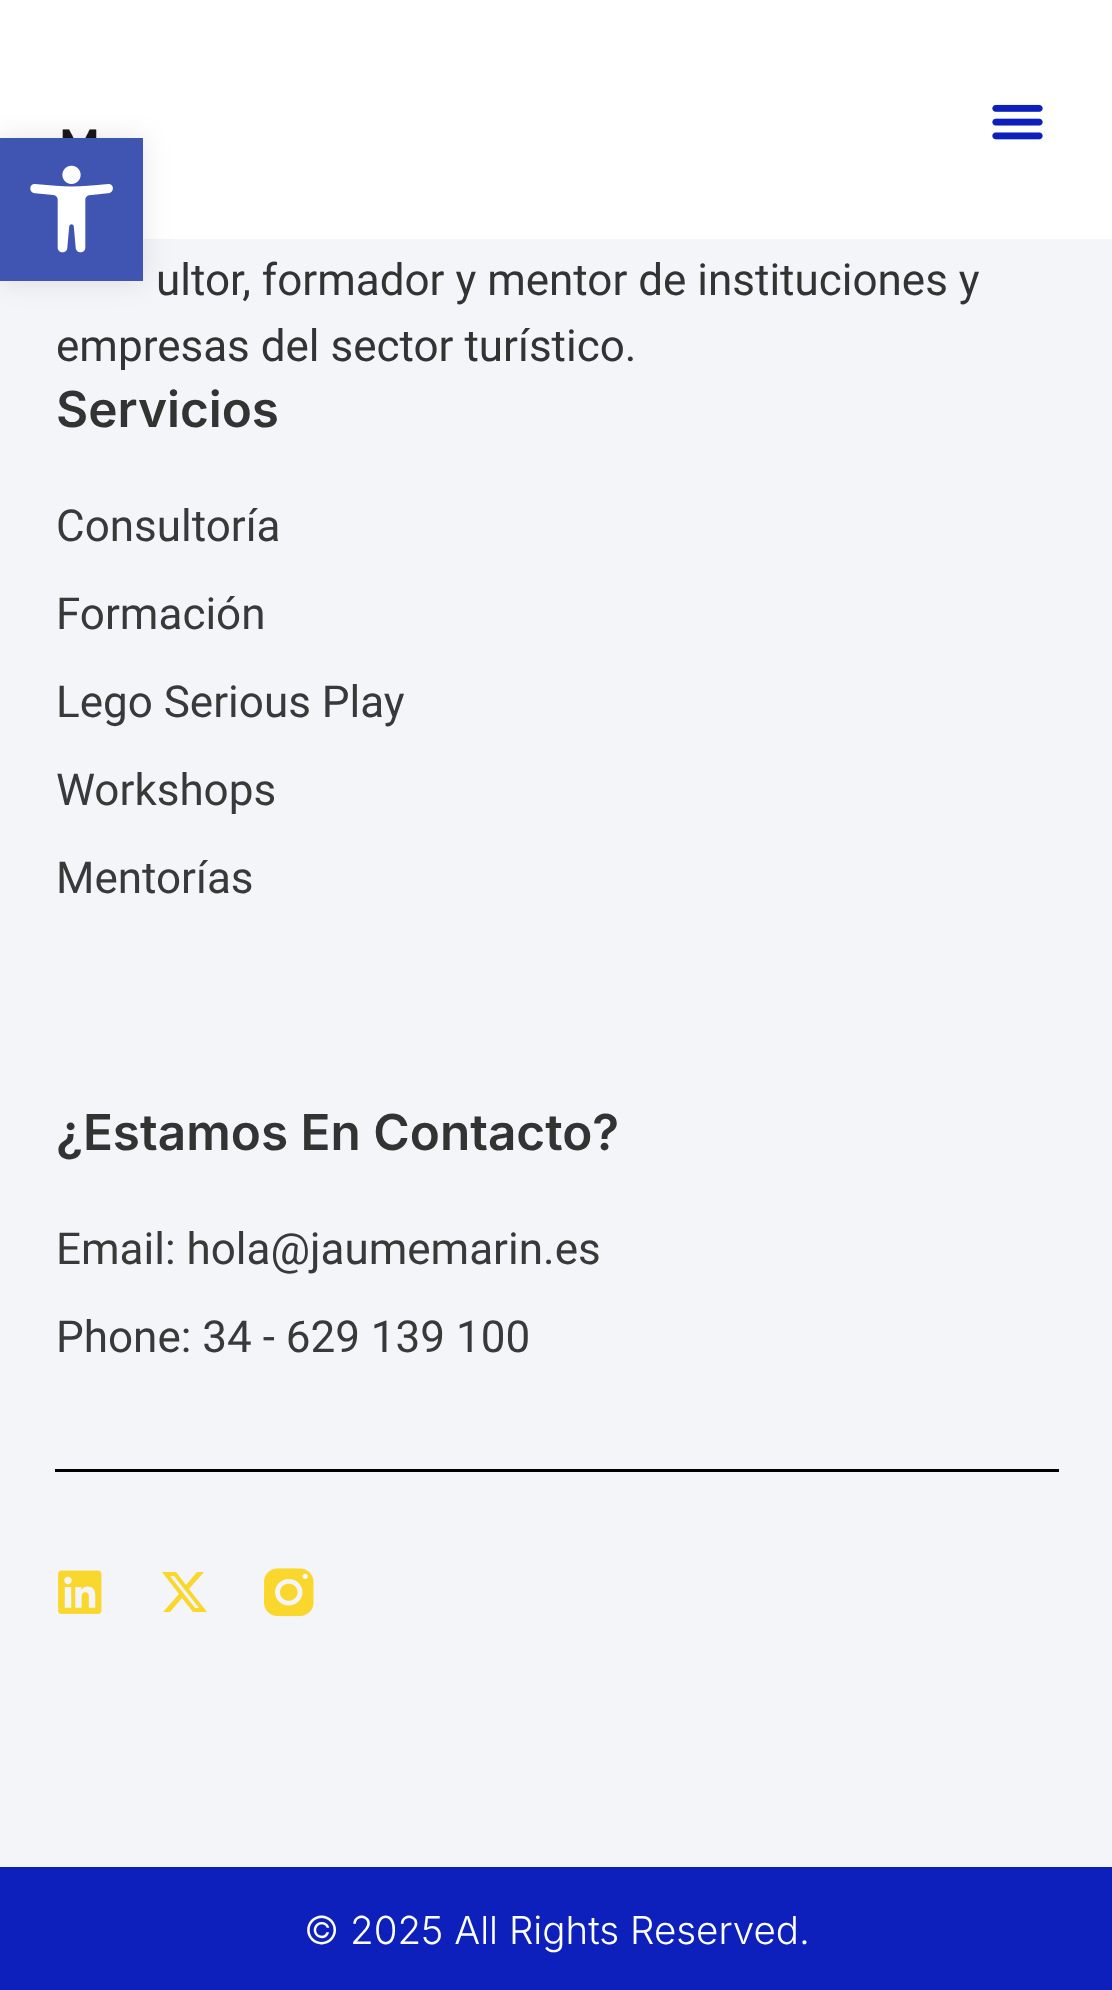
<svg xmlns="http://www.w3.org/2000/svg" width="1112" height="1990" viewBox="0 0 1112 1990">
  <defs>
    <filter id="blur1" x="-50%" y="-200%" width="200%" height="500%"><feGaussianBlur stdDeviation="14"/></filter>
  </defs>
  <rect width="100%" height="100%" fill="#f3f5f8"/>
  <rect x="0" y="0" width="1112" height="239" fill="#ffffff"/>
  <image x="62" y="129" width="35" height="9" href="img1.png"/>
  <image x="992" y="104" width="51" height="36" href="img2.png"/>
  <rect x="0" y="138" width="143" height="143" fill="#000000" fill-opacity="0.1" filter="url(#blur1)"/>
  <rect x="0" y="138" width="143" height="143" fill="#4054b2"/>
  <image x="30" y="165" width="83" height="88" href="img3.png"/>
  <text x="156" y="295" font-family="Roboto" font-size="44" fill="#333333">ultor, formador y mentor de instituciones y</text>
  <text x="56" y="361" font-family="Roboto" font-size="44" fill="#333333">empresas del sector turístico.</text>
  <text x="56" y="427" font-family="Inter" font-size="49.5" font-weight="600" fill="#333333">Servicios</text>
  <text x="56" y="541" font-family="Roboto" font-size="44" fill="#393939">Consultoría</text>
  <text x="56" y="629" font-family="Roboto" font-size="44" fill="#393939">Formación</text>
  <text x="56" y="717" font-family="Roboto" font-size="44" fill="#393939">Lego Serious Play</text>
  <text x="56" y="805" font-family="Roboto" font-size="44" fill="#393939">Workshops</text>
  <text x="56" y="893" font-family="Roboto" font-size="44" fill="#393939">Mentorías</text>
  <text x="56" y="1150" font-family="Inter" font-size="49.5" font-weight="600" fill="#333333">¿Estamos En Contacto?</text>
  <text x="56" y="1264" font-family="Roboto" font-size="44" fill="#393939">Email: hola@jaumemarin.es</text>
  <text x="56" y="1352" font-family="Roboto" font-size="44" fill="#393939">Phone: 34 - 629 139 100</text>
  <rect x="55" y="1469" width="1004" height="3" fill="#000000"/>
  <image x="58" y="1570" width="44" height="44" href="img4.png"/>
  <path d="M197 1572H204L189 1589L207 1612H193L182 1598L170 1612H163L179 1594L162 1572H176L186 1585ZM195 1608H199L174 1576H170Z" fill="#fad72d"/>
  <image x="264" y="1568" width="50" height="49" href="img5.png"/>
  <rect x="0" y="1867" width="1112" height="123" fill="#0d20bb"/>
  <text x="304" y="1944" font-family="Inter" font-size="38.5" font-weight="300" fill="#ffffff">© 2025 All Rights Reserved.</text>
</svg>
